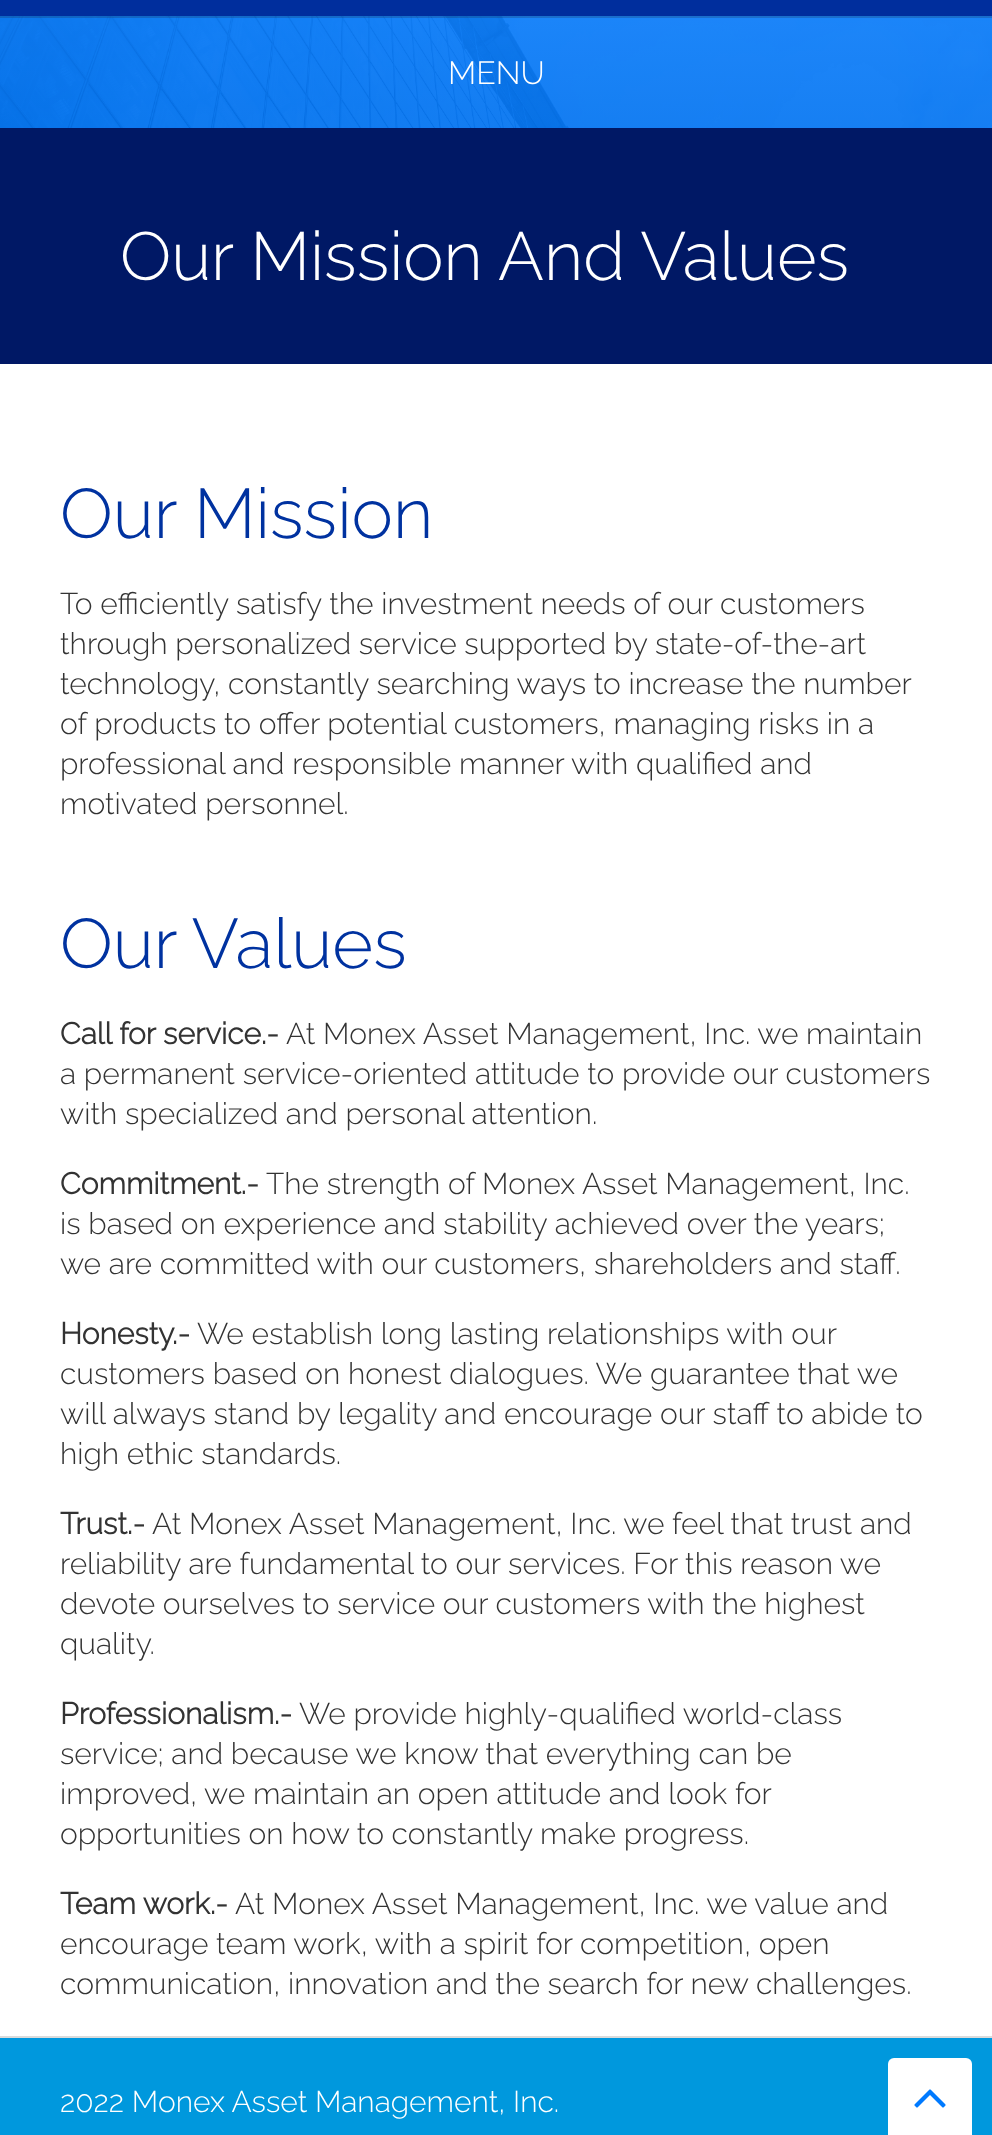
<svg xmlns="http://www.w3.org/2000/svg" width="992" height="2135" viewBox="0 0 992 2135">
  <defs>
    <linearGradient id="g1" gradientUnits="userSpaceOnUse" x1="496" y1="18" x2="496" y2="-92"><stop offset="0" stop-color="#000000" stop-opacity="0.03"/><stop offset="1" stop-color="#ffffff" stop-opacity="0.03"/></linearGradient>
    <linearGradient id="g2" gradientUnits="userSpaceOnUse" x1="496" y1="128" x2="496" y2="18"><stop offset="0" stop-color="#000000" stop-opacity="0.03"/><stop offset="1" stop-color="#ffffff" stop-opacity="0.03"/></linearGradient>
  </defs>
  <rect width="100%" height="100%" fill="#ffffff"/>
  <image x="0" y="16" width="992" height="112" href="img1.png"/>
  <rect x="0" y="0" width="992" height="16" fill="#002e9d"/>
  <rect x="0" y="16" width="992" height="112" fill="#0077f9" fill-opacity="0.9"/>
  <rect x="0" y="16" width="992" height="2" fill="url(#g1)"/>
  <rect x="0" y="18" width="992" height="110" fill="url(#g2)"/>
  <rect x="0" y="16" width="992" height="2" fill="#383838" fill-opacity="0.2"/>
  <text x="448" y="84" font-family="Raleway" font-size="32" font-weight="300" fill="#ffffff">MENU</text>
  <rect x="0" y="128" width="992" height="236" fill="#001865"/>
  <text x="120" y="280" font-family="Raleway" font-size="68" font-weight="300" fill="#ffffff">Our Mission And Values</text>
  <text x="60" y="538" font-family="Raleway" font-size="70" font-weight="300" fill="#0032a0">Our Mission</text>
  <text x="60" y="614" font-family="Raleway" font-size="30" font-weight="300" fill="#333333">To efficiently satisfy the investment needs of our customers</text>
  <text x="60" y="654" font-family="Raleway" font-size="30" font-weight="300" fill="#333333">through personalized service supported by state-of-the-art</text>
  <text x="60" y="694" font-family="Raleway" font-size="30" font-weight="300" fill="#333333">technology, constantly searching ways to increase the number</text>
  <text x="60" y="734" font-family="Raleway" font-size="30" font-weight="300" fill="#333333">of products to offer potential customers, managing risks in a</text>
  <text x="60" y="774" font-family="Raleway" font-size="30" font-weight="300" fill="#333333">professional and responsible manner with qualified and</text>
  <text x="60" y="814" font-family="Raleway" font-size="30" font-weight="300" fill="#333333">motivated personnel.</text>
  <text x="60" y="968" font-family="Raleway" font-size="70" font-weight="300" fill="#0032a0">Our Values</text>
  <text x="60" y="1044" font-family="Raleway" font-size="30" font-weight="bold" fill="#333333">Call for service.-</text>
  <text x="286" y="1044" font-family="Raleway" font-size="30" font-weight="300" fill="#333333">At Monex Asset Management, Inc. we maintain</text>
  <text x="60" y="1084" font-family="Raleway" font-size="30" font-weight="300" fill="#333333">a permanent service-oriented attitude to provide our customers</text>
  <text x="60" y="1124" font-family="Raleway" font-size="30" font-weight="300" fill="#333333">with specialized and personal attention.</text>
  <text x="60" y="1194" font-family="Raleway" font-size="30" font-weight="bold" fill="#333333">Commitment.-</text>
  <text x="266" y="1194" font-family="Raleway" font-size="30" font-weight="300" fill="#333333">The strength of Monex Asset Management, Inc.</text>
  <text x="60" y="1234" font-family="Raleway" font-size="30" font-weight="300" fill="#333333">is based on experience and stability achieved over the years;</text>
  <text x="60" y="1274" font-family="Raleway" font-size="30" font-weight="300" fill="#333333">we are committed with our customers, shareholders and staff.</text>
  <text x="60" y="1344" font-family="Raleway" font-size="30" font-weight="bold" fill="#333333">Honesty.-</text>
  <text x="197" y="1344" font-family="Raleway" font-size="30" font-weight="300" fill="#333333">We establish long lasting relationships with our</text>
  <text x="60" y="1384" font-family="Raleway" font-size="30" font-weight="300" fill="#333333">customers based on honest dialogues. We guarantee that we</text>
  <text x="60" y="1424" font-family="Raleway" font-size="30" font-weight="300" fill="#333333">will always stand by legality and encourage our staff to abide to</text>
  <text x="60" y="1464" font-family="Raleway" font-size="30" font-weight="300" fill="#333333">high ethic standards.</text>
  <text x="60" y="1534" font-family="Raleway" font-size="30" font-weight="bold" fill="#333333">Trust.-</text>
  <text x="152" y="1534" font-family="Raleway" font-size="30" font-weight="300" fill="#333333">At Monex Asset Management, Inc. we feel that trust and</text>
  <text x="60" y="1574" font-family="Raleway" font-size="30" font-weight="300" fill="#333333">reliability are fundamental to our services. For this reason we</text>
  <text x="60" y="1614" font-family="Raleway" font-size="30" font-weight="300" fill="#333333">devote ourselves to service our customers with the highest</text>
  <text x="60" y="1654" font-family="Raleway" font-size="30" font-weight="300" fill="#333333">quality.</text>
  <text x="60" y="1724" font-family="Raleway" font-size="30" font-weight="bold" fill="#333333">Professionalism.-</text>
  <text x="299" y="1724" font-family="Raleway" font-size="30" font-weight="300" fill="#333333">We provide highly-qualified world-class</text>
  <text x="60" y="1764" font-family="Raleway" font-size="30" font-weight="300" fill="#333333">service; and because we know that everything can be</text>
  <text x="60" y="1804" font-family="Raleway" font-size="30" font-weight="300" fill="#333333">improved, we maintain an open attitude and look for</text>
  <text x="60" y="1844" font-family="Raleway" font-size="30" font-weight="300" fill="#333333">opportunities on how to constantly make progress.</text>
  <text x="60" y="1914" font-family="Raleway" font-size="30" font-weight="bold" fill="#333333">Team work.-</text>
  <text x="235" y="1914" font-family="Raleway" font-size="30" font-weight="300" fill="#333333">At Monex Asset Management, Inc. we value and</text>
  <text x="60" y="1954" font-family="Raleway" font-size="30" font-weight="300" fill="#333333">encourage team work, with a spirit for competition, open</text>
  <text x="60" y="1994" font-family="Raleway" font-size="30" font-weight="300" fill="#333333">communication, innovation and the search for new challenges.</text>
  <rect x="0" y="2036" width="992" height="2" fill="#dbdbdb"/>
  <rect x="0" y="2038" width="992" height="97" fill="#0098dd"/>
  <text x="60" y="2112" font-family="Raleway" font-size="30" font-weight="300" fill="#ffffff">2022 Monex Asset Management, Inc.</text>
  <rect x="888" y="2058" width="84" height="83" rx="6" fill="#ffffff"/>
  <image x="914" y="2089" width="32" height="19" href="img2.png"/>
</svg>
